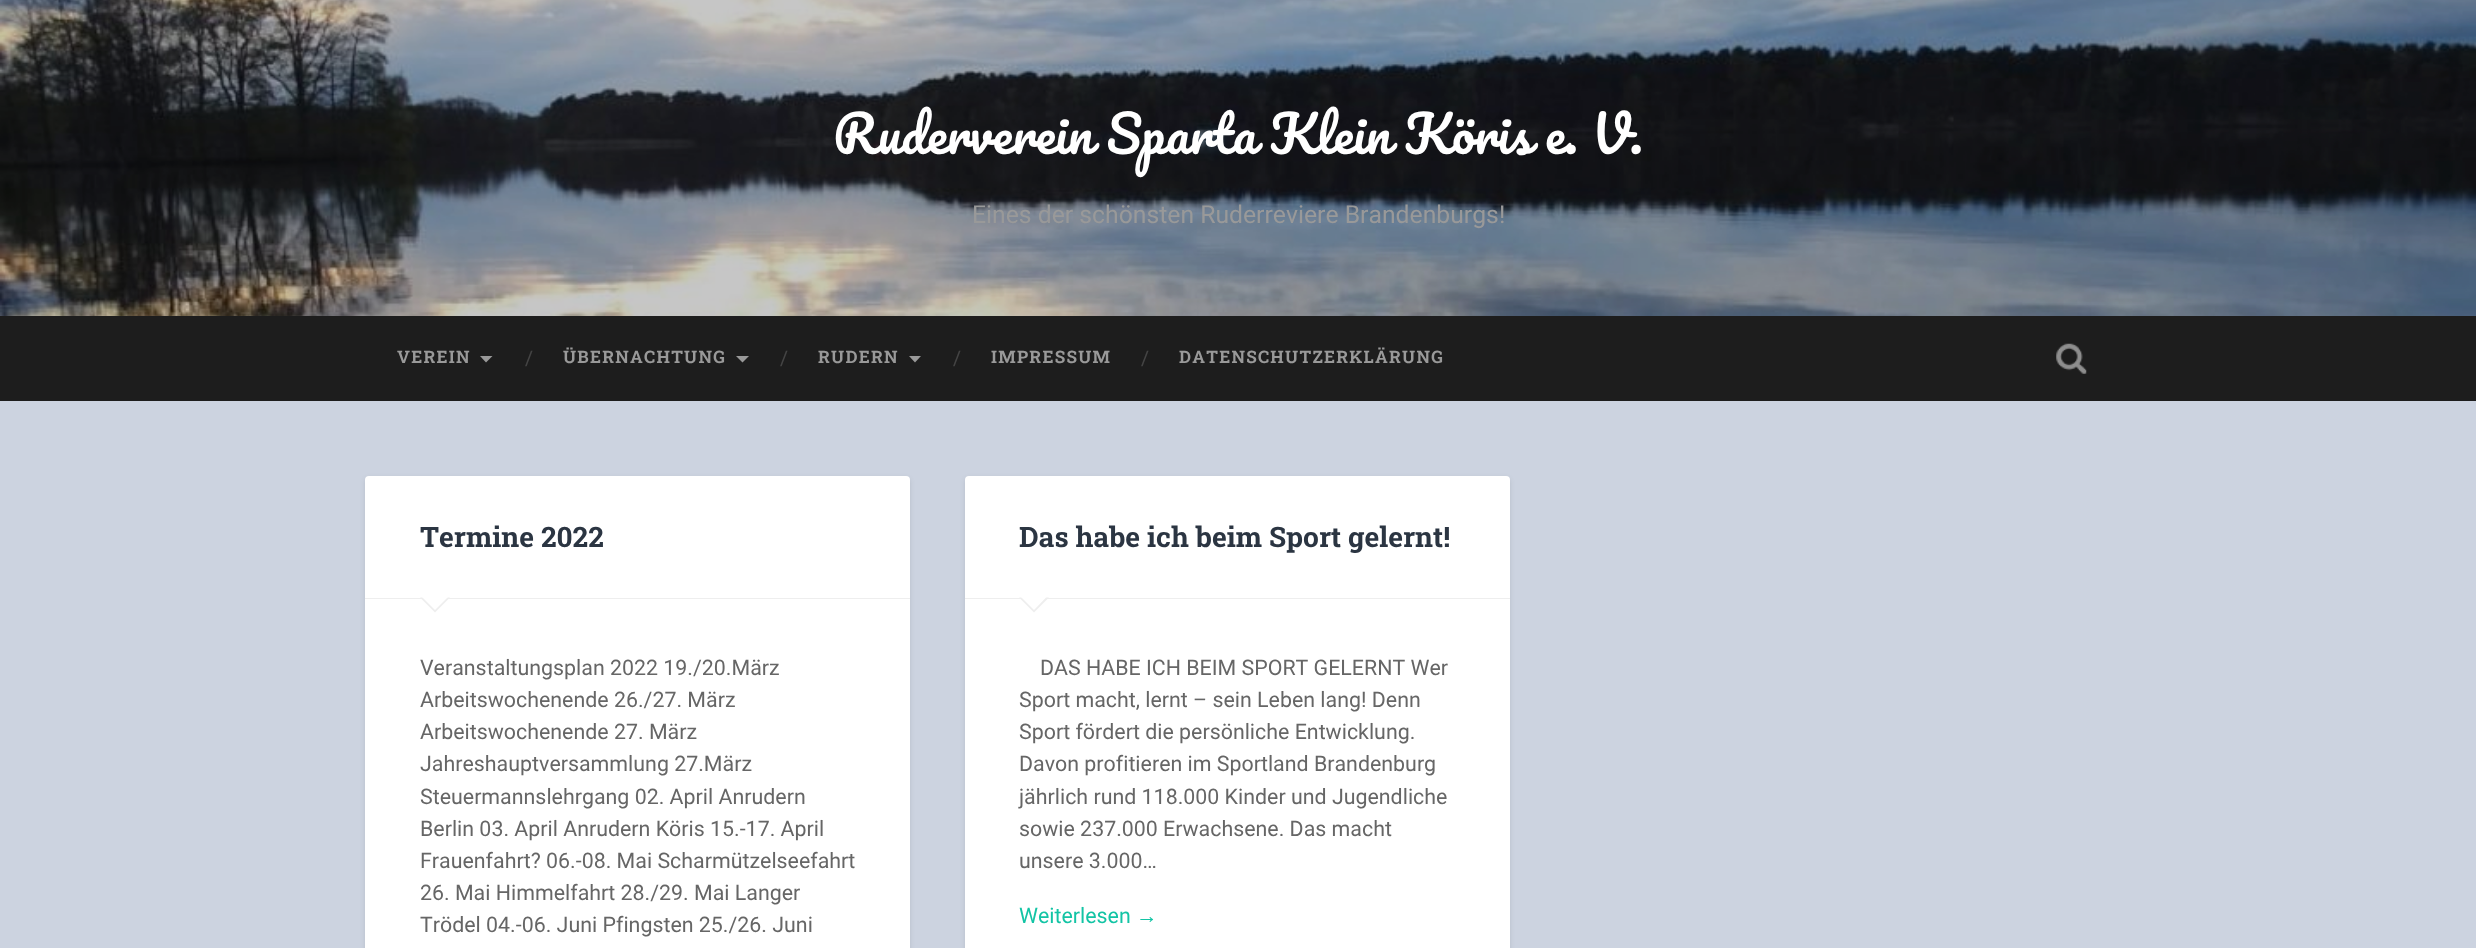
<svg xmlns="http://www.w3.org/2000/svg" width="2476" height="948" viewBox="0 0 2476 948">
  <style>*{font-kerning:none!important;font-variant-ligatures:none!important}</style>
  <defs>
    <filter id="blur1" x="-50%" y="-200%" width="200%" height="500%"><feGaussianBlur stdDeviation="2.5"/></filter>
  </defs>
  <rect width="100%" height="100%" fill="#ccd3e0"/>
  <image x="0" y="0" width="2476" height="316" href="img1.png"/>
  <text x="833" y="154" font-family="Pacifico" font-size="50.6" fill="#ffffff">Ruderverein Sparta Klein Köris e. V.</text>
  <text x="972" y="223" font-family="Roboto" font-size="24.75" fill="#999999">Eines der schönsten Ruderreviere Brandenburgs!</text>
  <rect x="0" y="316" width="2476" height="85" fill="#1d1d1d"/>
  <text x="397" y="363" font-family="Roboto Slab" font-size="17.25" font-weight="bold" letter-spacing="1.25" fill="#999999">VEREIN</text>
  <path d="M480 356H492.5L486 362.5Z" fill="#999999"/>
  <text x="525" y="365" font-family="Roboto Slab" font-size="20" fill="#444444">/</text>
  <text x="563" y="363" font-family="Roboto Slab" font-size="17.25" font-weight="bold" letter-spacing="1.25" fill="#999999">ÜBERNACHTUNG</text>
  <path d="M736 356H749L742.5 362.5Z" fill="#999999"/>
  <text x="780" y="365" font-family="Roboto Slab" font-size="20" fill="#444444">/</text>
  <text x="818" y="363" font-family="Roboto Slab" font-size="17.25" font-weight="bold" letter-spacing="1.25" fill="#999999">RUDERN</text>
  <path d="M909 356H921L915 362.5Z" fill="#999999"/>
  <text x="953" y="365" font-family="Roboto Slab" font-size="20" fill="#444444">/</text>
  <text x="991" y="363" font-family="Roboto Slab" font-size="17.25" font-weight="bold" letter-spacing="1.25" fill="#999999">IMPRESSUM</text>
  <text x="1141" y="365" font-family="Roboto Slab" font-size="20" fill="#444444">/</text>
  <text x="1179" y="363" font-family="Roboto Slab" font-size="17.25" font-weight="bold" letter-spacing="1.25" fill="#999999">DATENSCHUTZERKLÄRUNG</text>
  <image x="2056" y="343" width="31" height="31" href="img2.png"/>
  <rect x="365" y="478" width="545" height="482" rx="4" fill="#000000" fill-opacity="0.1" filter="url(#blur1)"/>
  <rect x="365" y="476" width="545" height="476" rx="4" fill="#ffffff"/>
  <rect x="365" y="598" width="545" height="1" fill="#eeeeee"/>
  <text x="420" y="547" font-family="Roboto Slab" font-size="28.1" font-weight="bold" fill="#2b3542">Termine 2022</text>
  <path d="M420 597.5H450L435 612.5Z" fill="#eeeeee"/>
  <path d="M421 596H449L435 610Z" fill="#ffffff"/>
  <text x="420" y="675" font-family="Roboto" font-size="21.4" fill="#666666">Veranstaltungsplan 2022 19./20.März</text>
  <text x="420" y="707" font-family="Roboto" font-size="21.4" fill="#666666">Arbeitswochenende 26./27. März</text>
  <text x="420" y="739" font-family="Roboto" font-size="21.4" fill="#666666">Arbeitswochenende 27. März</text>
  <text x="420" y="771" font-family="Roboto" font-size="21.4" fill="#666666">Jahreshauptversammlung 27.März</text>
  <text x="420" y="804" font-family="Roboto" font-size="21.4" fill="#666666">Steuermannslehrgang 02. April Anrudern</text>
  <text x="420" y="836" font-family="Roboto" font-size="21.4" fill="#666666">Berlin 03. April Anrudern Köris 15.-17. April</text>
  <text x="420" y="868" font-family="Roboto" font-size="21.4" fill="#666666">Frauenfahrt? 06.-08. Mai Scharmützelseefahrt</text>
  <text x="420" y="900" font-family="Roboto" font-size="21.4" fill="#666666">26. Mai Himmelfahrt 28./29. Mai Langer</text>
  <text x="420" y="932" font-family="Roboto" font-size="21.4" fill="#666666">Trödel 04.-06. Juni Pfingsten 25./26. Juni</text>
  <rect x="965" y="478" width="545" height="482" rx="4" fill="#000000" fill-opacity="0.1" filter="url(#blur1)"/>
  <rect x="965" y="476" width="545" height="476" rx="4" fill="#ffffff"/>
  <rect x="965" y="598" width="545" height="1" fill="#eeeeee"/>
  <text x="1019" y="547" font-family="Roboto Slab" font-size="28.1" font-weight="bold" fill="#2b3542">Das habe ich beim Sport gelernt!</text>
  <path d="M1019 597.5H1049L1034 612.5Z" fill="#eeeeee"/>
  <path d="M1020 596H1047.5L1034 610Z" fill="#ffffff"/>
  <text x="1040" y="675" font-family="Roboto" font-size="21.4" fill="#666666">DAS HABE ICH BEIM SPORT GELERNT Wer</text>
  <text x="1019" y="707" font-family="Roboto" font-size="21.4" fill="#666666">Sport macht, lernt – sein Leben lang! Denn</text>
  <text x="1019" y="739" font-family="Roboto" font-size="21.4" fill="#666666">Sport fördert die persönliche Entwicklung.</text>
  <text x="1019" y="771" font-family="Roboto" font-size="21.4" fill="#666666">Davon profitieren im Sportland Brandenburg</text>
  <text x="1019" y="804" font-family="Roboto" font-size="21.4" fill="#666666">jährlich rund 118.000 Kinder und Jugendliche</text>
  <text x="1019" y="836" font-family="Roboto" font-size="21.4" fill="#666666">sowie 237.000 Erwachsene. Das macht</text>
  <text x="1019" y="868" font-family="Roboto" font-size="21.4" fill="#666666">unsere 3.000…</text>
  <text x="1019" y="923" font-family="Roboto" font-size="21.4" fill="#13c4a5">Weiterlesen</text>
  <text x="1136" y="923" font-family="Liberation Sans" font-size="21.4" fill="#13c4a5">→</text>
</svg>
